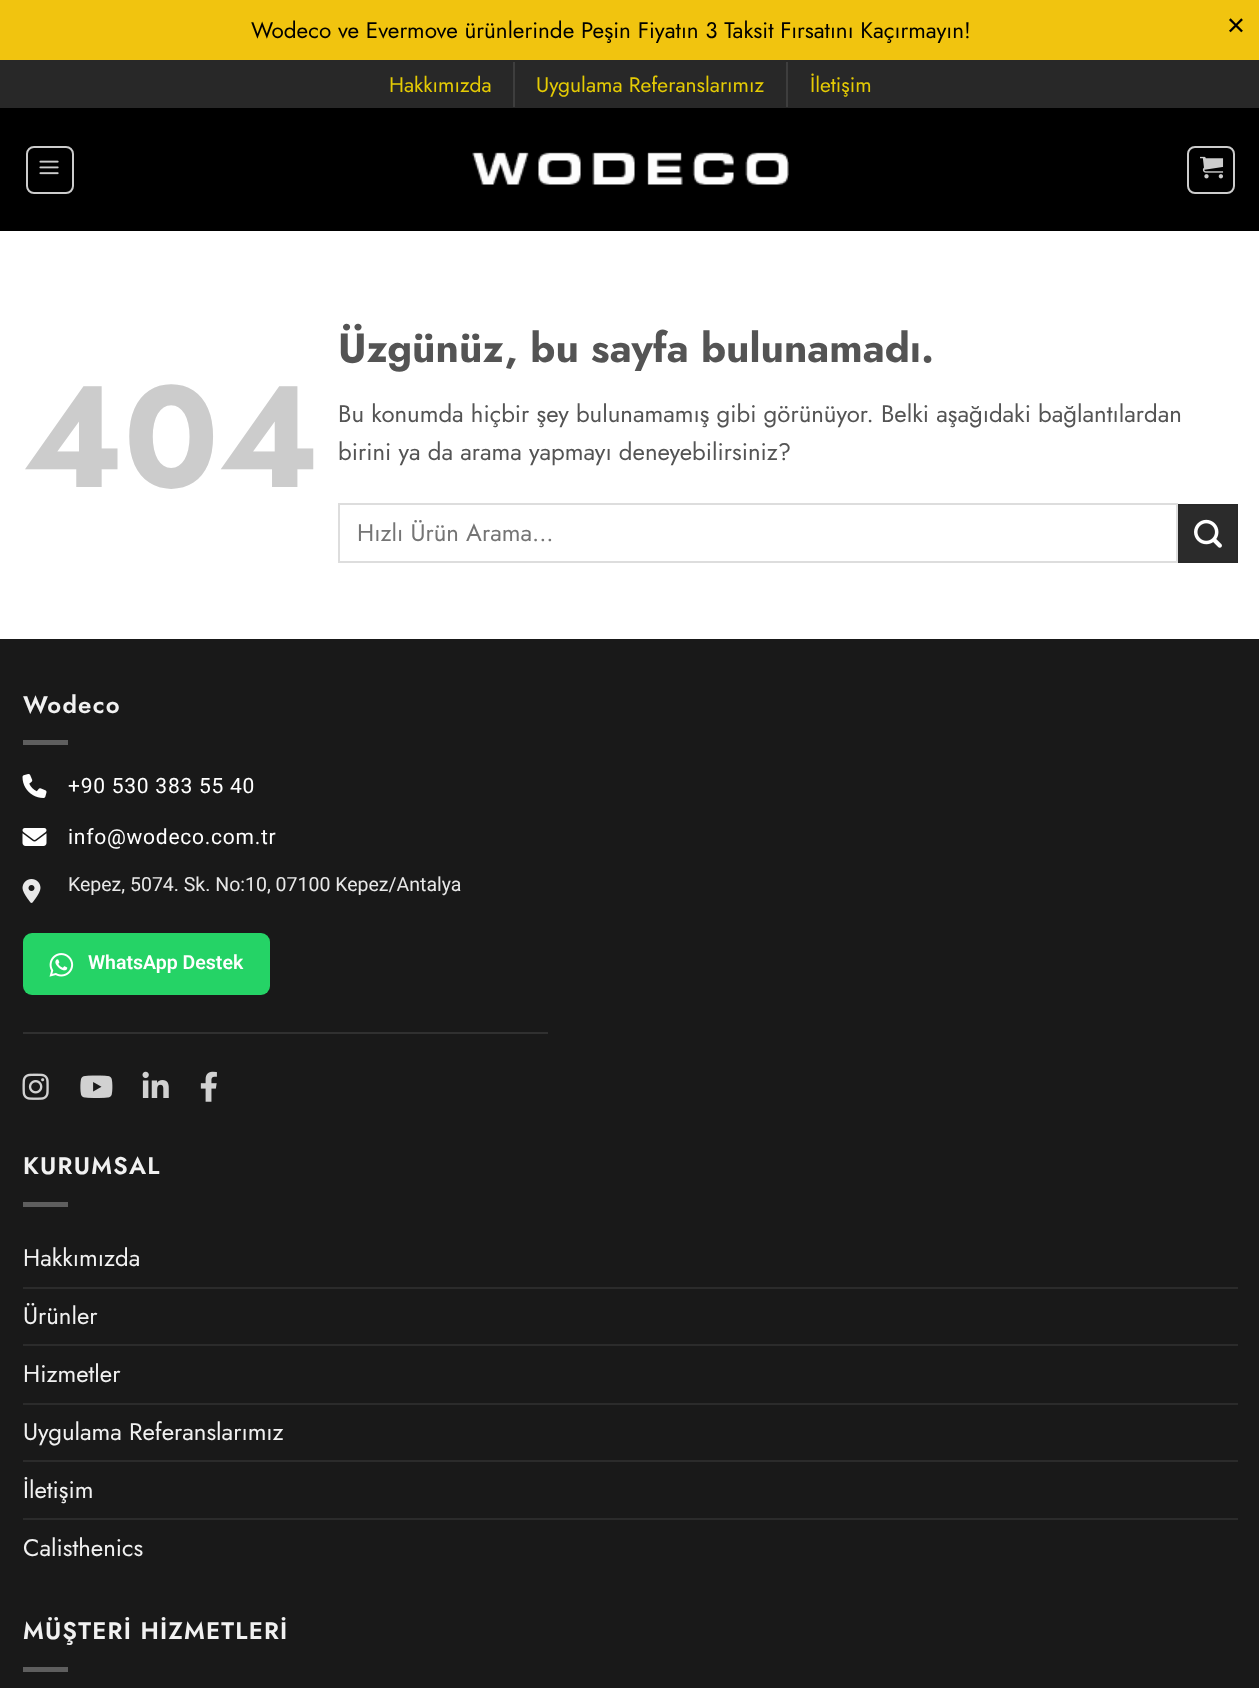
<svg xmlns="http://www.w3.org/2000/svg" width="1259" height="1688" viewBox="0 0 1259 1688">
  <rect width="100%" height="100%" fill="#ffffff"/>
  <rect x="0" y="0" width="1259" height="60" fill="#f1c40f"/>
  <text x="251" y="38" font-family="Jost" font-size="22.5" fill="#000000">Wodeco ve Evermove ürünlerinde Peşin Fiyatın 3 Taksit Fırsatını Kaçırmayın!</text>
  <text x="1227" y="33" font-family="Jost" font-size="30" fill="#000000">×</text>
  <rect x="0" y="60" width="1259" height="48" fill="#282828"/>
  <text x="389" y="92" font-family="Jost" font-size="21" fill="#e5cb04">Hakkımızda</text>
  <rect x="513" y="62" width="2" height="45" fill="#3e3e3e"/>
  <text x="536" y="92" font-family="Jost" font-size="21" fill="#e5cb04">Uygulama Referanslarımız</text>
  <rect x="786" y="62" width="2" height="45" fill="#3e3e3e"/>
  <text x="810" y="92" font-family="Jost" font-size="21" fill="#e5cb04">İletişim</text>
  <rect x="0" y="108" width="1259" height="123" fill="#000000"/>
  <rect x="27" y="147" width="46" height="46" rx="7" fill="none" stroke="#cccccc" stroke-width="2"/>
  <image x="39" y="160" width="20" height="15" href="img1.png"/>
  <image x="472" y="152" width="317" height="33" href="img2.png"/>
  <rect x="1188" y="147" width="46" height="46" rx="7" fill="none" stroke="#cccccc" stroke-width="2"/>
  <image x="1200" y="156" width="24" height="23" href="img3.png"/>
  <text x="23" y="487" font-family="Jost" font-size="144" font-weight="bold" fill="#cccccc">404</text>
  <text x="338" y="362" font-family="Jost" font-size="40.75" font-weight="bold" fill="#545454">Üzgünüz, bu sayfa bulunamadı.</text>
  <text x="338" y="422" font-family="Jost" font-size="24" fill="#545454">Bu konumda hiçbir şey bulunamamış gibi görünüyor. Belki aşağıdaki bağlantılardan</text>
  <text x="338" y="460" font-family="Jost" font-size="24" fill="#545454">birini ya da arama yapmayı deneyebilirsiniz?</text>
  <rect x="339" y="504" width="838" height="58" fill="none" stroke="#dddddd" stroke-width="2"/>
  <text x="357" y="541" font-family="Jost" font-size="24" fill="#757575">Hızlı Ürün Arama...</text>
  <rect x="1179" y="505" width="58" height="57" fill="#2b2b2b" stroke="#292929" stroke-width="2"/>
  <image x="1194" y="519" width="28" height="29" href="img4.png"/>
  <rect x="0" y="639" width="1259" height="1049" fill="#191919"/>
  <text x="23" y="713" font-family="Jost" font-size="24" font-weight="600" letter-spacing="1.25" fill="#f1f1f1">Wodeco</text>
  <rect x="23" y="740" width="45" height="5" fill="#5e5e5e"/>
  <image x="22" y="774" width="25" height="24" href="img5.png"/>
  <text x="68" y="793" font-family="Roboto" font-size="21" letter-spacing="0.75" fill="#ffffff">+90 530 383 55 40</text>
  <image x="22" y="828" width="25" height="18" href="img6.png"/>
  <text x="68" y="844" font-family="Roboto" font-size="21" letter-spacing="0.75" fill="#ffffff">info@wodeco.com.tr</text>
  <image x="22" y="879" width="19" height="24" href="img7.png"/>
  <text x="68" y="891" font-family="Roboto" font-size="19.5" fill="#e8e8e8">Kepez, 5074. Sk. No:10, 07100 Kepez/Antalya</text>
  <rect x="23" y="933" width="247" height="62" rx="9" fill="#25d366"/>
  <image x="49" y="953" width="25" height="24" href="img8.png"/>
  <text x="88" y="969" font-family="Roboto" font-size="19.5" font-weight="600" fill="#ffffff">WhatsApp Destek</text>
  <rect x="23" y="1032" width="525" height="2" fill="#303030"/>
  <image x="22" y="1073" width="27" height="27" href="img9.png"/>
  <image x="80" y="1075" width="33" height="23" href="img10.png"/>
  <image x="142" y="1071" width="27" height="27" href="img11.png"/>
  <image x="200" y="1071" width="17" height="31" href="img12.png"/>
  <text x="23" y="1174" font-family="Jost" font-size="24" font-weight="600" letter-spacing="1.25" fill="#f1f1f1">KURUMSAL</text>
  <rect x="23" y="1202" width="45" height="5" fill="#5e5e5e"/>
  <text x="23" y="1266" font-family="Jost" font-size="24" fill="#f1f1f1">Hakkımızda</text>
  <rect x="23" y="1287" width="1215" height="2" fill="#2b2b2b"/>
  <text x="23" y="1324" font-family="Jost" font-size="24" fill="#f1f1f1">Ürünler</text>
  <rect x="23" y="1344" width="1215" height="2" fill="#2b2b2b"/>
  <text x="23" y="1382" font-family="Jost" font-size="24" fill="#f1f1f1">Hizmetler</text>
  <rect x="23" y="1403" width="1215" height="2" fill="#2b2b2b"/>
  <text x="23" y="1440" font-family="Jost" font-size="24" fill="#f1f1f1">Uygulama Referanslarımız</text>
  <rect x="23" y="1460" width="1215" height="2" fill="#2b2b2b"/>
  <text x="23" y="1498" font-family="Jost" font-size="24" fill="#f1f1f1">İletişim</text>
  <rect x="23" y="1518" width="1215" height="2" fill="#2b2b2b"/>
  <text x="23" y="1556" font-family="Jost" font-size="24" fill="#f1f1f1">Calisthenics</text>
  <text x="23" y="1639" font-family="Jost" font-size="24" font-weight="600" letter-spacing="1.25" fill="#f1f1f1">MÜŞTERİ HİZMETLERİ</text>
  <rect x="23" y="1667" width="45" height="5" fill="#5e5e5e"/>
</svg>
